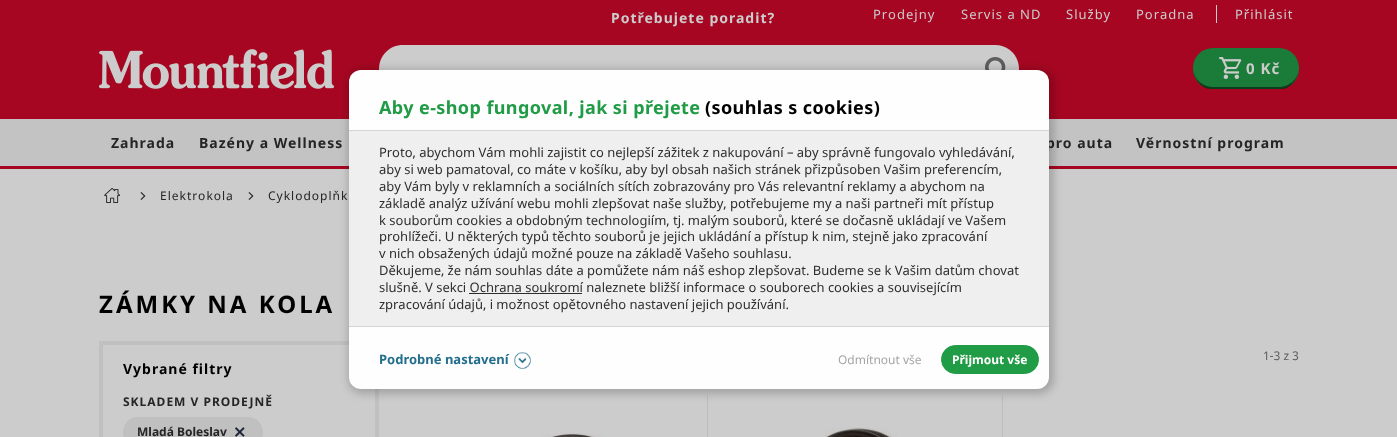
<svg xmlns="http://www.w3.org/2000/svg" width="1397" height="437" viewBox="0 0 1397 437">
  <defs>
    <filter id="blur1" x="-50%" y="-200%" width="200%" height="500%"><feGaussianBlur stdDeviation="4"/></filter>
  </defs>
  <rect width="100%" height="100%" fill="#cccccc"/>
  <rect x="0" y="0" width="1397" height="119" fill="#a60621"/>
  <text x="611" y="23" font-family="Noto Sans" font-size="14" font-weight="bold" letter-spacing="1" fill="#cccccc">Potřebujete poradit?</text>
  <text x="873" y="19" font-family="Noto Sans" font-size="13" letter-spacing="1" fill="#cccccc">Prodejny</text>
  <text x="961" y="19" font-family="Noto Sans" font-size="13" letter-spacing="1" fill="#cccccc">Servis a ND</text>
  <text x="1066" y="19" font-family="Noto Sans" font-size="13" letter-spacing="1" fill="#cccccc">Služby</text>
  <text x="1136" y="19" font-family="Noto Sans" font-size="13" letter-spacing="1" fill="#cccccc">Poradna</text>
  <rect x="1216" y="5" width="1" height="18" fill="#cccccc"/>
  <text x="1235" y="19" font-family="Noto Sans" font-size="13" letter-spacing="1" fill="#cccccc">Přihlásit</text>
  <image x="99" y="49" width="235" height="40" href="img1.png"/>
  <path d="M403 45H964V93H403C389.5 93 379 82.5 379 69C379 55.5 389.5 45 403 45Z" fill="#cccccc"/>
  <path d="M964 45H995C1008.5 45 1019 55.5 1019 69C1019 82.5 1008.5 93 995 93H964Z" fill="#cccccc"/>
  <image x="985" y="57" width="21" height="13" href="img2.png"/>
  <rect x="1193" y="48" width="106" height="41" rx="20" fill="#1a7c38"/>
  <path d="M1193 67C1193 77 1199 87 1209 89H1224H1283C1293 87 1299 77 1299 67C1299 78 1290 87 1279 87H1213C1202 87 1193 78 1193 67Z" fill="#000000" fill-opacity="0.5"/>
  <image x="1219" y="57" width="23" height="22" href="img3.png"/>
  <text x="1246" y="74" font-family="Noto Sans" font-size="15" font-weight="bold" letter-spacing="1" fill="#cccccc">0 Kč</text>
  <rect x="0" y="119" width="1397" height="47" fill="#c3c3c3"/>
  <rect x="0" y="166" width="1397" height="3" fill="#a60621"/>
  <text x="111" y="148" font-family="Noto Sans" font-size="14" font-weight="bold" letter-spacing="1" fill="#252525">Zahrada</text>
  <text x="199" y="148" font-family="Noto Sans" font-size="14" font-weight="bold" letter-spacing="1" fill="#252525">Bazény a Wellness</text>
  <text x="1046" y="148" font-family="Noto Sans" font-size="14" font-weight="bold" letter-spacing="1" fill="#252525">pro auta</text>
  <text x="1136" y="148" font-family="Noto Sans" font-size="14" font-weight="bold" letter-spacing="1" fill="#252525">Věrnostní program</text>
  <image x="104" y="188" width="16" height="15" href="img4.png"/>
  <image x="140" y="192" width="6" height="8" href="img5.png"/>
  <text x="160" y="200" font-family="Noto Sans" font-size="12" letter-spacing="1" fill="#252525">Elektrokola</text>
  <image x="248" y="192" width="6" height="8" href="img5.png"/>
  <text x="268" y="200" font-family="Noto Sans" font-size="12" letter-spacing="1" fill="#252525">Cyklodoplňk</text>
  <text x="99" y="313" font-family="Noto Sans" font-size="24" font-weight="bold" letter-spacing="3" fill="#000000">ZÁMKY NA KOLA</text>
  <text x="1263" y="360" font-family="Noto Sans" font-size="12" fill="#5d5d5d">1-3 z 3</text>
  <rect x="707" y="395" width="1" height="42" fill="#bebebe"/>
  <image x="540" y="433" width="66" height="4" href="img6.png"/>
  <rect x="1002" y="395" width="1" height="42" fill="#bebebe"/>
  <image x="823" y="427" width="74" height="10" href="img7.png"/>
  <rect x="101" y="343" width="276" height="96" fill="none" stroke="#c0c0c0" stroke-width="4"/>
  <text x="123" y="374" font-family="Noto Sans" font-size="14" font-weight="bold" letter-spacing="1" fill="#000000">Vybrané filtry</text>
  <text x="123" y="406" font-family="Noto Sans" font-size="12" font-weight="bold" letter-spacing="1" fill="#252525">SKLADEM V PRODEJNĚ</text>
  <rect x="123" y="417" width="140" height="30" rx="15" fill="#c0c0c0"/>
  <text x="137" y="436" font-family="Noto Sans" font-size="12" font-weight="bold" fill="#252525">Mladá Boleslav</text>
  <image x="235" y="427" width="10" height="10" href="img8.png"/>
  <rect x="348" y="69" width="706" height="325" rx="15" fill="#000000" fill-opacity="0.2" filter="url(#blur1)"/>
  <rect x="349" y="70" width="700" height="319" rx="12" fill="#fefefe"/>
  <text x="379" y="114" font-family="Noto Sans" font-size="18" font-weight="bold" letter-spacing="0.4" fill="#209b46">Aby e-shop fungoval, jak si přejete</text>
  <text x="705" y="114" font-family="Noto Sans" font-size="18" font-weight="bold" letter-spacing="0.4" fill="#000000">(souhlas s cookies)</text>
  <rect x="349" y="131" width="700" height="195" fill="#efefef"/>
  <rect x="349" y="130" width="700" height="1" fill="#d4d4d4"/>
  <rect x="349" y="326" width="700" height="1" fill="#d4d4d4"/>
  <text x="379" y="157" font-family="Noto Sans" font-size="13" fill="#2e2e2e">Proto, abychom Vám mohli zajistit co nejlepší zážitek z nakupování – aby správně fungovalo vyhledávání,</text>
  <text x="379" y="174" font-family="Noto Sans" font-size="13" fill="#2e2e2e">aby si web pamatoval, co máte v košíku, aby byl obsah našich stránek přizpůsoben Vašim preferencím,</text>
  <text x="379" y="191" font-family="Noto Sans" font-size="13" fill="#2e2e2e">aby Vám byly v reklamních a sociálních sítích zobrazovány pro Vás relevantní reklamy a abychom na</text>
  <text x="379" y="208" font-family="Noto Sans" font-size="13" fill="#2e2e2e">základě analýz užívání webu mohli zlepšovat naše služby, potřebujeme my a naši partneři mít přístup</text>
  <text x="379" y="225" font-family="Noto Sans" font-size="13" fill="#2e2e2e">k souborům cookies a obdobným technologiím, tj. malým souborů, které se dočasně ukládají ve Vašem</text>
  <text x="379" y="241" font-family="Noto Sans" font-size="13" fill="#2e2e2e">prohlížeči. U některých typů těchto souborů je jejich ukládání a přístup k nim, stejně jako zpracování</text>
  <text x="379" y="258" font-family="Noto Sans" font-size="13" fill="#2e2e2e">v nich obsažených údajů možné pouze na základě Vašeho souhlasu.</text>
  <text x="379" y="275" font-family="Noto Sans" font-size="13" fill="#2e2e2e">Děkujeme, že nám souhlas dáte a pomůžete nám náš eshop zlepšovat. Budeme se k Vašim datům chovat</text>
  <text x="379" y="292" font-family="Noto Sans" font-size="13" fill="#2e2e2e">slušně. V sekci Ochrana soukromí naleznete bližší informace o souborech cookies a souvisejícím</text>
  <rect x="469" y="293" width="113" height="1" fill="#2e2e2e"/>
  <text x="379" y="309" font-family="Noto Sans" font-size="13" fill="#2e2e2e">zpracování údajů, i možnost opětovného nastavení jejich používání.</text>
  <text x="379" y="364" font-family="Noto Sans" font-size="13" font-weight="bold" fill="#236e8c">Podrobné nastavení</text>
  <image x="514" y="352" width="17" height="18" href="img9.png"/>
  <text x="838" y="364" font-family="Noto Sans" font-size="12" fill="#a5a5a5">Odmítnout vše</text>
  <rect x="941.5" y="345.5" width="97" height="28" rx="14" fill="#209b46" stroke="#209b46"/>
  <text x="952" y="364" font-family="Noto Sans" font-size="12" font-weight="bold" fill="#ffffff">Přijmout vše</text>
</svg>
